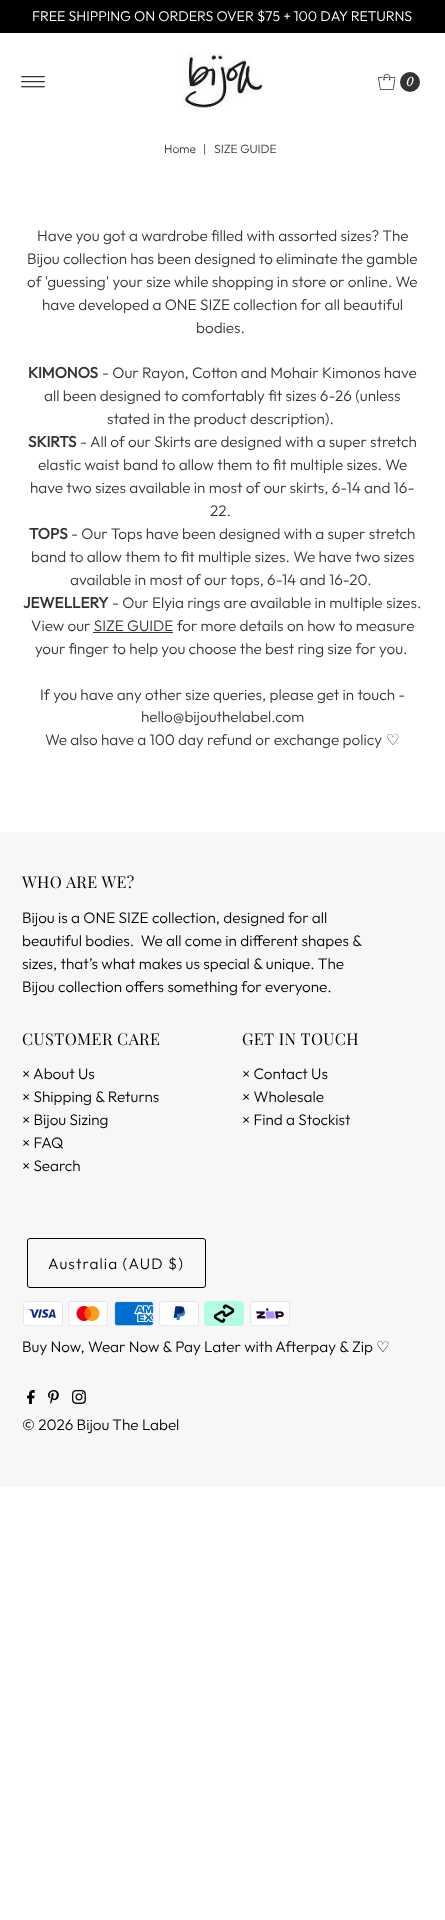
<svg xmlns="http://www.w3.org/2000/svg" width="445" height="1920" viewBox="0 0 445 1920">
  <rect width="100%" height="100%" fill="#ffffff"/>
  <rect x="0" y="0" width="445" height="33" fill="#000000"/>
  <text x="32" y="21" font-family="Outfit" font-size="14.15" font-weight="300" fill="#ffffff">FREE SHIPPING ON ORDERS OVER $75 + 100 DAY RETURNS</text>
  <image x="21" y="76" width="24" height="12" href="img1.png"/>
  <image x="183" y="53" width="81" height="55" href="img2.png"/>
  <image x="378" y="74" width="17" height="16" href="img3.png"/>
  <circle cx="410" cy="82" r="10" fill="#333333"/>
  <text x="406" y="86" font-family="Libre Baskerville" font-size="12" font-style="italic" fill="#ffffff">0</text>
  <text x="164" y="153" font-family="Outfit" font-size="12" font-weight="300" fill="#333333">Home</text>
  <text x="203" y="153" font-family="Outfit" font-size="12" font-weight="300" fill="#333333">|</text>
  <text x="214" y="153" font-family="Outfit" font-size="12" font-weight="300" fill="#333333">SIZE GUIDE</text>
  <text x="37" y="241" font-family="Outfit" font-size="15.3" font-weight="300" fill="#333333">Have you got a wardrobe filled with assorted sizes? The</text>
  <text x="27" y="264" font-family="Outfit" font-size="15.3" font-weight="300" fill="#333333">Bijou collection has been designed to eliminate the gamble</text>
  <text x="27" y="287" font-family="Outfit" font-size="15.3" font-weight="300" fill="#333333">of 'guessing' your size while shopping in store or online. We</text>
  <text x="42" y="310" font-family="Outfit" font-size="15.3" font-weight="300" fill="#333333">have developed a ONE SIZE collection for all beautiful</text>
  <text x="196" y="333" font-family="Outfit" font-size="15.3" font-weight="300" fill="#333333">bodies.</text>
  <text x="28" y="378" font-family="Outfit" font-size="15.3" font-weight="bold" fill="#333333">KIMONOS</text>
  <text x="102" y="378" font-family="Outfit" font-size="15.3" font-weight="300" fill="#333333">- Our Rayon, Cotton and Mohair Kimonos have</text>
  <text x="44" y="401" font-family="Outfit" font-size="15.3" font-weight="300" fill="#333333">all been designed to comfortably fit sizes 6-26 (unless</text>
  <text x="107" y="424" font-family="Outfit" font-size="15.3" font-weight="300" fill="#333333">stated in the product description).</text>
  <text x="28" y="447" font-family="Outfit" font-size="15.3" font-weight="bold" fill="#333333">SKIRTS</text>
  <text x="80" y="447" font-family="Outfit" font-size="15.3" font-weight="300" fill="#333333">- All of our Skirts are designed with a super stretch</text>
  <text x="38" y="470" font-family="Outfit" font-size="15.3" font-weight="300" fill="#333333">elastic waist band to allow them to fit multiple sizes. We</text>
  <text x="30" y="493" font-family="Outfit" font-size="15.3" font-weight="300" fill="#333333">have two sizes available in most of our skirts, 6-14 and 16-</text>
  <text x="210" y="516" font-family="Outfit" font-size="15.3" font-weight="300" fill="#333333">22.</text>
  <text x="29" y="539" font-family="Outfit" font-size="15.3" font-weight="bold" fill="#333333">TOPS</text>
  <text x="71" y="539" font-family="Outfit" font-size="15.3" font-weight="300" fill="#333333">- Our Tops have been designed with a super stretch</text>
  <text x="31" y="562" font-family="Outfit" font-size="15.3" font-weight="300" fill="#333333">band to allow them to fit multiple sizes. We have two sizes</text>
  <text x="70" y="585" font-family="Outfit" font-size="15.3" font-weight="300" fill="#333333">available in most of our tops, 6-14 and 16-20.</text>
  <text x="23" y="608" font-family="Outfit" font-size="15.3" font-weight="bold" fill="#333333">JEWELLERY</text>
  <text x="112" y="608" font-family="Outfit" font-size="15.3" font-weight="300" fill="#333333">- Our Elyia rings are available in multiple sizes.</text>
  <text x="31" y="631" font-family="Outfit" font-size="15.3" font-weight="300" fill="#333333">View our SIZE GUIDE for more details on how to measure</text>
  <rect x="93" y="632" width="80" height="1" fill="#333333"/>
  <text x="35" y="654" font-family="Outfit" font-size="15.3" font-weight="300" fill="#333333">your finger to help you choose the best ring size for you.</text>
  <text x="40" y="700" font-family="Outfit" font-size="15.3" font-weight="300" fill="#333333">If you have any other size queries, please get in touch -</text>
  <text x="141" y="722" font-family="Outfit" font-size="15.3" font-weight="300" fill="#333333">hello@bijouthelabel.com</text>
  <text x="45" y="745" font-family="Outfit" font-size="15.3" font-weight="300" fill="#333333">We also have a 100 day refund or exchange policy</text>
  <text x="386" y="745" font-family="DejaVu Sans" font-size="15.3" fill="#333333">♡</text>
  <rect x="0" y="832" width="445" height="655" fill="#f7f7f7"/>
  <text x="22" y="888" font-family="Playfair Display" font-size="16.25" letter-spacing="0.4" fill="#000000">WHO ARE WE?</text>
  <text x="22" y="923" font-family="Outfit" font-size="15.3" font-weight="300" fill="#000000">Bijou is a ONE SIZE collection, designed for all</text>
  <text x="22" y="946" font-family="Outfit" font-size="15.3" font-weight="300" fill="#000000" xml:space="preserve">beautiful bodies.  We all come in different shapes &amp;</text>
  <text x="22" y="969" font-family="Outfit" font-size="15.3" font-weight="300" fill="#000000">sizes, that’s what makes us special &amp; unique. The</text>
  <text x="22" y="992" font-family="Outfit" font-size="15.3" font-weight="300" fill="#000000">Bijou collection offers something for everyone.</text>
  <text x="22" y="1045" font-family="Playfair Display" font-size="16.25" letter-spacing="0.4" fill="#000000">CUSTOMER CARE</text>
  <text x="22" y="1079" font-family="Outfit" font-size="15.3" font-weight="300" fill="#000000">× About Us</text>
  <text x="22" y="1102" font-family="Outfit" font-size="15.3" font-weight="300" fill="#000000">× Shipping &amp; Returns</text>
  <text x="22" y="1125" font-family="Outfit" font-size="15.3" font-weight="300" fill="#000000">× Bijou Sizing</text>
  <text x="22" y="1148" font-family="Outfit" font-size="15.3" font-weight="300" fill="#000000">× FAQ</text>
  <text x="22" y="1171" font-family="Outfit" font-size="15.3" font-weight="300" fill="#000000">× Search</text>
  <text x="242" y="1045" font-family="Playfair Display" font-size="16.25" letter-spacing="0.4" fill="#000000">GET IN TOUCH</text>
  <text x="242" y="1079" font-family="Outfit" font-size="15.3" font-weight="300" fill="#000000">× Contact Us</text>
  <text x="242" y="1102" font-family="Outfit" font-size="15.3" font-weight="300" fill="#000000">× Wholesale</text>
  <text x="242" y="1125" font-family="Outfit" font-size="15.3" font-weight="300" fill="#000000">× Find a Stockist</text>
  <rect x="27.5" y="1238.5" width="178" height="49" rx="2.5" fill="none" stroke="#000000"/>
  <text x="48" y="1269" font-family="Outfit" font-size="15.3" font-weight="300" letter-spacing="1.1" fill="#000000">Australia (AUD $)</text>
  <image x="23" y="1301" width="40" height="25" href="img4.png"/>
  <image x="68" y="1301" width="40" height="25" href="img5.png"/>
  <image x="114" y="1301" width="40" height="25" href="img6.png"/>
  <image x="159" y="1301" width="40" height="25" href="img7.png"/>
  <image x="204" y="1301" width="40" height="25" href="img8.png"/>
  <image x="250" y="1301" width="40" height="25" href="img9.png"/>
  <text x="22" y="1352" font-family="Outfit" font-size="15.3" font-weight="300" fill="#000000">Buy Now, Wear Now &amp; Pay Later with Afterpay &amp; Zip</text>
  <text x="376" y="1352" font-family="DejaVu Sans" font-size="15.3" fill="#000000">♡</text>
  <image x="27" y="1390" width="8" height="14" href="img10.png"/>
  <image x="48" y="1390" width="11" height="14" href="img11.png"/>
  <image x="72" y="1390" width="14" height="14" href="img12.png"/>
  <text x="22" y="1430" font-family="Outfit" font-size="15.3" font-weight="300" fill="#000000">© 2026 Bijou The Label</text>
</svg>
